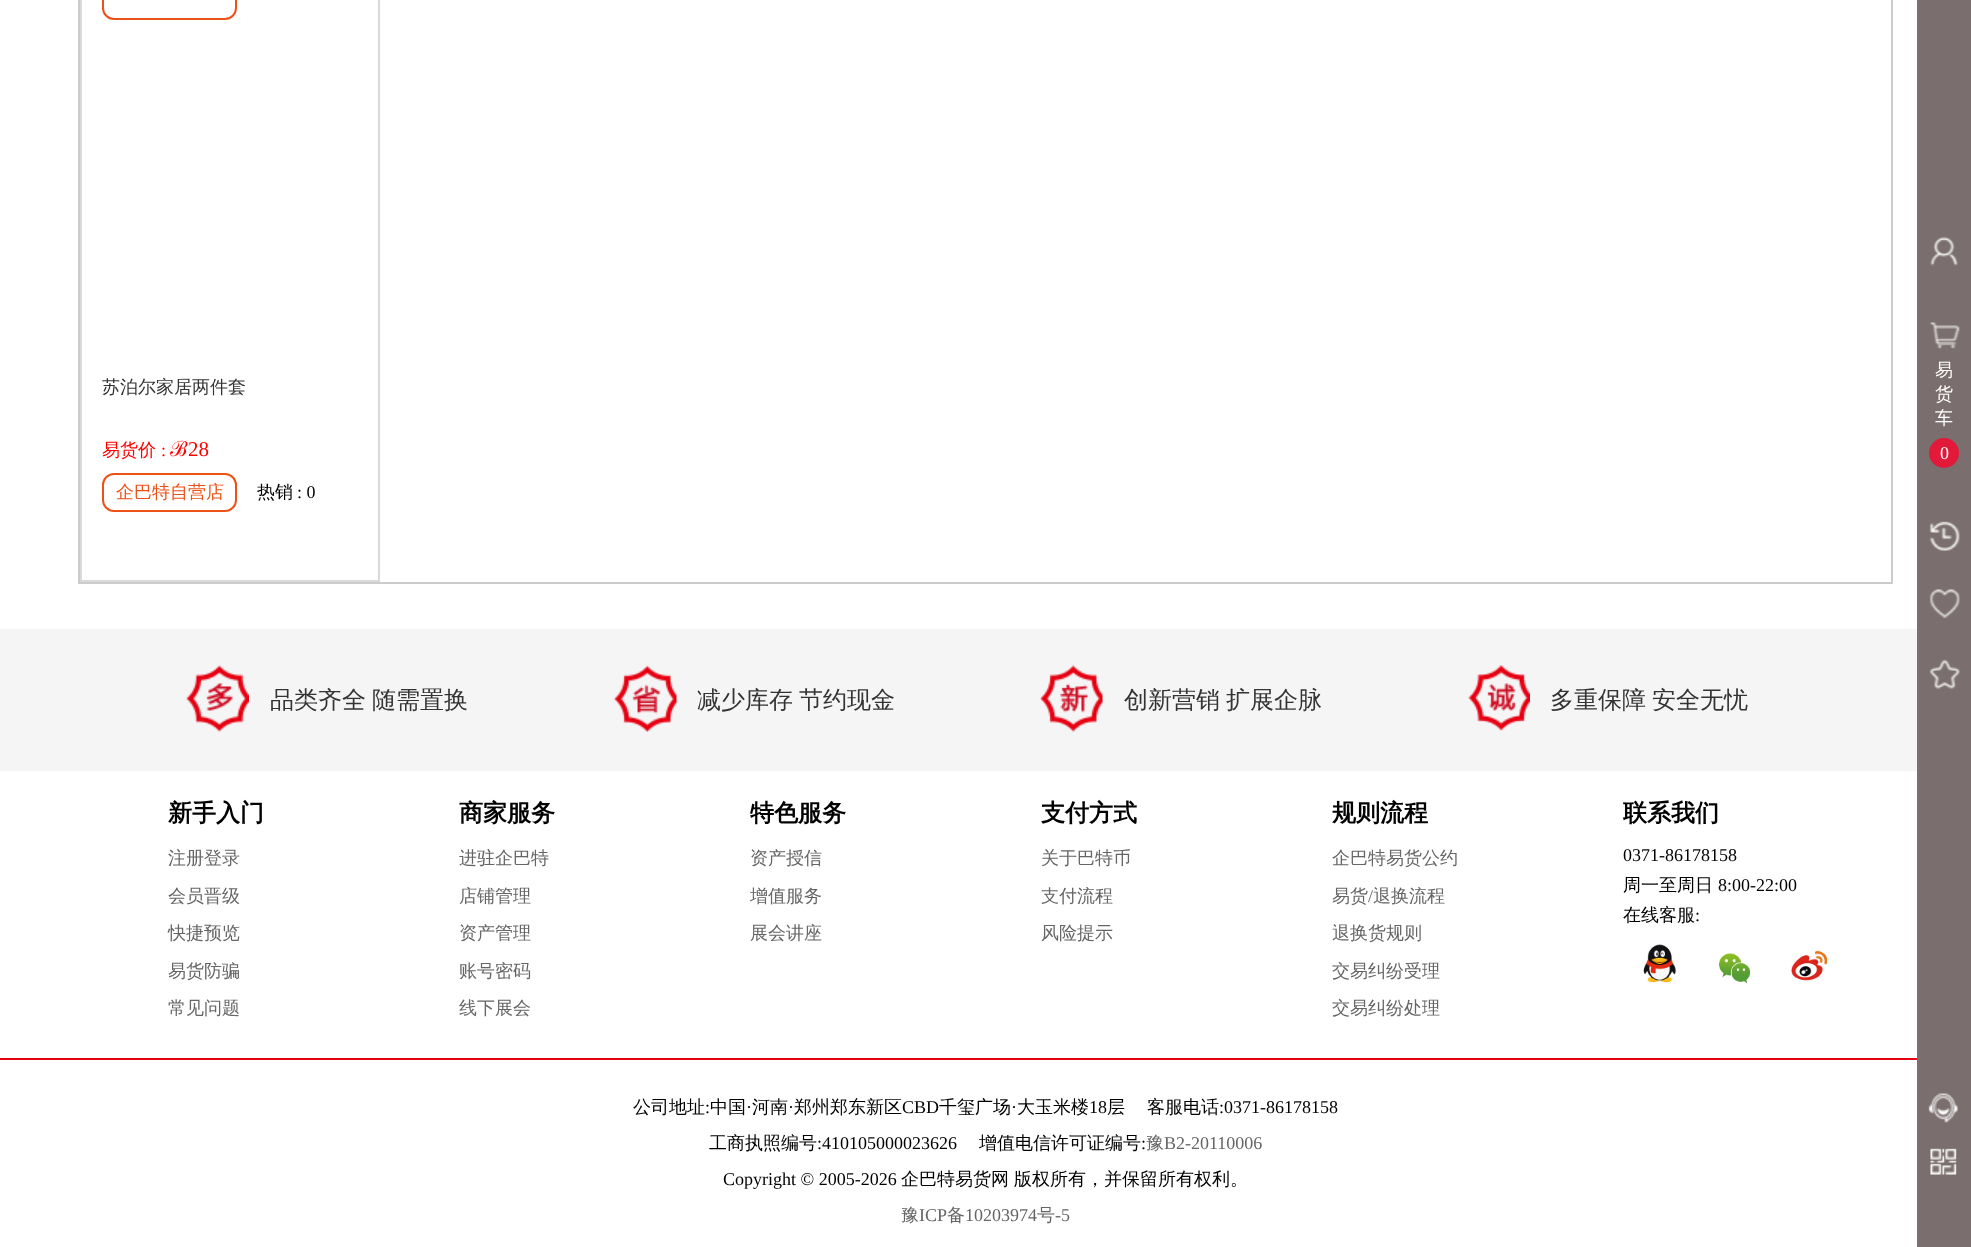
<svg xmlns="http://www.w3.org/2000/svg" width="1971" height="1247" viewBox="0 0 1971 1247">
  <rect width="100%" height="100%" fill="#ffffff"/>
  <rect x="79" y="-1" width="1813" height="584" fill="none" stroke="#cccccc" stroke-width="2"/>
  <rect x="81" y="-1" width="298" height="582" fill="none" stroke="#d9d9d9" stroke-width="2"/>
  <rect x="103" y="-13" width="133" height="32" rx="11" fill="none" stroke="#ec5117" stroke-width="2"/>
  <text x="102" y="393" font-family="WenQuanYi Zen Hei" font-size="18" font-weight="500" fill="#333333">苏泊尔家居两件套</text>
  <text x="102" y="456" font-family="WenQuanYi Zen Hei" font-size="18" font-weight="500" fill="#ff0000">易货价</text>
  <text x="161" y="456" font-family="Liberation Serif" font-size="18" fill="#ff0000">:</text>
  <text x="170" y="456" font-family="Noto Sans" font-size="21" fill="#ff0000">ℬ</text>
  <text x="188" y="456" font-family="Liberation Serif" font-size="21" fill="#ff0000">28</text>
  <rect x="103" y="474" width="133" height="37" rx="11" fill="none" stroke="#ec5117" stroke-width="2"/>
  <text x="116" y="498" font-family="WenQuanYi Zen Hei" font-size="18" font-weight="500" fill="#ec5117">企巴特自营店</text>
  <text x="257" y="498" font-family="WenQuanYi Zen Hei" font-size="18" font-weight="500" fill="#000000">热销</text>
  <text x="297" y="498" font-family="Liberation Serif" font-size="18" fill="#000000">: 0</text>
  <rect x="1917" y="0" width="54" height="1247" fill="#7a6e6e"/>
  <image x="1930" y="236" width="28" height="30" href="img1.png"/>
  <image x="1929" y="322" width="31" height="27" href="img2.png"/>
  <text x="1935" y="376" font-family="WenQuanYi Zen Hei" font-size="18" font-weight="500" fill="#ffffff">易</text>
  <text x="1935" y="400" font-family="WenQuanYi Zen Hei" font-size="18" font-weight="500" fill="#ffffff">货</text>
  <text x="1935" y="424" font-family="WenQuanYi Zen Hei" font-size="18" font-weight="500" fill="#ffffff">车</text>
  <circle cx="1944" cy="453" r="15" fill="#e31939"/>
  <text x="1940" y="459" font-family="Liberation Serif" font-size="18" fill="#ffffff">0</text>
  <image x="1929" y="521" width="31" height="30" href="img3.png"/>
  <image x="1929" y="589" width="31" height="30" href="img4.png"/>
  <image x="1929" y="659" width="31" height="30" href="img5.png"/>
  <image x="1928" y="1093" width="30" height="30" href="img6.png"/>
  <image x="1930" y="1148" width="27" height="27" href="img7.png"/>
  <rect x="0" y="629" width="1917" height="142" fill="#f5f5f5"/>
  <image x="186" y="665" width="63" height="67" href="img8.png"/>
  <text x="270" y="708" font-family="WenQuanYi Zen Hei" font-size="24" font-weight="500" fill="#333333">品类齐全</text>
  <text x="372" y="708" font-family="WenQuanYi Zen Hei" font-size="24" font-weight="500" fill="#333333">随需置换</text>
  <image x="613" y="665" width="64" height="67" href="img9.png"/>
  <text x="697" y="708" font-family="WenQuanYi Zen Hei" font-size="24" font-weight="500" fill="#333333">减少库存</text>
  <text x="799" y="708" font-family="WenQuanYi Zen Hei" font-size="24" font-weight="500" fill="#333333">节约现金</text>
  <image x="1040" y="665" width="63" height="67" href="img10.png"/>
  <text x="1124" y="708" font-family="WenQuanYi Zen Hei" font-size="24" font-weight="500" fill="#333333">创新营销</text>
  <text x="1226" y="708" font-family="WenQuanYi Zen Hei" font-size="24" font-weight="500" fill="#333333">扩展企脉</text>
  <image x="1468" y="665" width="62" height="66" href="img11.png"/>
  <text x="1550" y="708" font-family="WenQuanYi Zen Hei" font-size="24" font-weight="500" fill="#333333">多重保障</text>
  <text x="1652" y="708" font-family="WenQuanYi Zen Hei" font-size="24" font-weight="500" fill="#333333">安全无忧</text>
  <text x="168" y="821" font-family="WenQuanYi Zen Hei" font-size="24" font-weight="bold" fill="#000000">新手入门</text>
  <text x="168" y="864" font-family="WenQuanYi Zen Hei" font-size="18" font-weight="500" fill="#656565">注册登录</text>
  <text x="168" y="902" font-family="WenQuanYi Zen Hei" font-size="18" font-weight="500" fill="#656565">会员晋级</text>
  <text x="168" y="939" font-family="WenQuanYi Zen Hei" font-size="18" font-weight="500" fill="#656565">快捷预览</text>
  <text x="168" y="977" font-family="WenQuanYi Zen Hei" font-size="18" font-weight="500" fill="#656565">易货防骗</text>
  <text x="168" y="1014" font-family="WenQuanYi Zen Hei" font-size="18" font-weight="500" fill="#656565">常见问题</text>
  <text x="459" y="821" font-family="WenQuanYi Zen Hei" font-size="24" font-weight="bold" fill="#000000">商家服务</text>
  <text x="459" y="864" font-family="WenQuanYi Zen Hei" font-size="18" font-weight="500" fill="#656565">进驻企巴特</text>
  <text x="459" y="902" font-family="WenQuanYi Zen Hei" font-size="18" font-weight="500" fill="#656565">店铺管理</text>
  <text x="459" y="939" font-family="WenQuanYi Zen Hei" font-size="18" font-weight="500" fill="#656565">资产管理</text>
  <text x="459" y="977" font-family="WenQuanYi Zen Hei" font-size="18" font-weight="500" fill="#656565">账号密码</text>
  <text x="459" y="1014" font-family="WenQuanYi Zen Hei" font-size="18" font-weight="500" fill="#656565">线下展会</text>
  <text x="750" y="821" font-family="WenQuanYi Zen Hei" font-size="24" font-weight="bold" fill="#000000">特色服务</text>
  <text x="750" y="864" font-family="WenQuanYi Zen Hei" font-size="18" font-weight="500" fill="#656565">资产授信</text>
  <text x="750" y="902" font-family="WenQuanYi Zen Hei" font-size="18" font-weight="500" fill="#656565">增值服务</text>
  <text x="750" y="939" font-family="WenQuanYi Zen Hei" font-size="18" font-weight="500" fill="#656565">展会讲座</text>
  <text x="1041" y="821" font-family="WenQuanYi Zen Hei" font-size="24" font-weight="bold" fill="#000000">支付方式</text>
  <text x="1041" y="864" font-family="WenQuanYi Zen Hei" font-size="18" font-weight="500" fill="#656565">关于巴特币</text>
  <text x="1041" y="902" font-family="WenQuanYi Zen Hei" font-size="18" font-weight="500" fill="#656565">支付流程</text>
  <text x="1041" y="939" font-family="WenQuanYi Zen Hei" font-size="18" font-weight="500" fill="#656565">风险提示</text>
  <text x="1332" y="821" font-family="WenQuanYi Zen Hei" font-size="24" font-weight="bold" fill="#000000">规则流程</text>
  <text x="1332" y="864" font-family="WenQuanYi Zen Hei" font-size="18" font-weight="500" fill="#656565">企巴特易货公约</text>
  <text x="1332" y="902" font-family="WenQuanYi Zen Hei" font-size="18" font-weight="500" fill="#656565">易货</text>
  <text x="1368" y="902" font-family="Liberation Serif" font-size="18" fill="#656565">/</text>
  <text x="1373" y="902" font-family="WenQuanYi Zen Hei" font-size="18" font-weight="500" fill="#656565">退换流程</text>
  <text x="1332" y="939" font-family="WenQuanYi Zen Hei" font-size="18" font-weight="500" fill="#656565">退换货规则</text>
  <text x="1332" y="977" font-family="WenQuanYi Zen Hei" font-size="18" font-weight="500" fill="#656565">交易纠纷受理</text>
  <text x="1332" y="1014" font-family="WenQuanYi Zen Hei" font-size="18" font-weight="500" fill="#656565">交易纠纷处理</text>
  <text x="1623" y="821" font-family="WenQuanYi Zen Hei" font-size="24" font-weight="bold" fill="#000000">联系我们</text>
  <text x="1623" y="861" font-family="Liberation Serif" font-size="18" fill="#000000">0371-86178158</text>
  <text x="1623" y="891" font-family="WenQuanYi Zen Hei" font-size="18" font-weight="500" fill="#000000">周一至周日</text>
  <text x="1718" y="891" font-family="Liberation Serif" font-size="18" fill="#000000">8:00-22:00</text>
  <text x="1623" y="921" font-family="WenQuanYi Zen Hei" font-size="18" font-weight="500" fill="#000000">在线客服</text>
  <text x="1695" y="921" font-family="Liberation Serif" font-size="18" fill="#000000">:</text>
  <image x="1643" y="944" width="34" height="39" href="img12.png"/>
  <image x="1719" y="953" width="32" height="31" href="img13.png"/>
  <image x="1791" y="950" width="37" height="31" href="img14.png"/>
  <rect x="0" y="1058" width="1917" height="2" fill="#e60012"/>
  <text x="633" y="1113" font-family="WenQuanYi Zen Hei" font-size="18" font-weight="500" fill="#000000">公司地址</text>
  <text x="705" y="1113" font-family="Liberation Serif" font-size="18" fill="#000000">:</text>
  <text x="710" y="1113" font-family="WenQuanYi Zen Hei" font-size="18" font-weight="500" fill="#000000">中国</text>
  <text x="746" y="1113" font-family="Liberation Serif" font-size="18" fill="#000000">·</text>
  <text x="752" y="1113" font-family="WenQuanYi Zen Hei" font-size="18" font-weight="500" fill="#000000">河南</text>
  <text x="788" y="1113" font-family="Liberation Serif" font-size="18" fill="#000000">·</text>
  <text x="794" y="1113" font-family="WenQuanYi Zen Hei" font-size="18" font-weight="500" fill="#000000">郑州郑东新区</text>
  <text x="902" y="1113" font-family="Liberation Serif" font-size="18" fill="#000000">CBD</text>
  <text x="939" y="1113" font-family="WenQuanYi Zen Hei" font-size="18" font-weight="500" fill="#000000">千玺广场</text>
  <text x="1011" y="1113" font-family="Liberation Serif" font-size="18" fill="#000000">·</text>
  <text x="1017" y="1113" font-family="WenQuanYi Zen Hei" font-size="18" font-weight="500" fill="#000000">大玉米楼</text>
  <text x="1089" y="1113" font-family="Liberation Serif" font-size="18" fill="#000000">18</text>
  <text x="1107" y="1113" font-family="WenQuanYi Zen Hei" font-size="18" font-weight="500" fill="#000000">层</text>
  <text x="1147" y="1113" font-family="WenQuanYi Zen Hei" font-size="18" font-weight="500" fill="#000000">客服电话</text>
  <text x="1219" y="1113" font-family="Liberation Serif" font-size="18" fill="#000000">:0371-86178158</text>
  <text x="709" y="1149" font-family="WenQuanYi Zen Hei" font-size="18" font-weight="500" fill="#000000">工商执照编号</text>
  <text x="817" y="1149" font-family="Liberation Serif" font-size="18" fill="#000000">:410105000023626</text>
  <text x="979" y="1149" font-family="WenQuanYi Zen Hei" font-size="18" font-weight="500" fill="#000000">增值电信许可证编号</text>
  <text x="1141" y="1149" font-family="Liberation Serif" font-size="18" fill="#000000">:</text>
  <text x="1146" y="1149" font-family="WenQuanYi Zen Hei" font-size="18" font-weight="500" fill="#656565">豫</text>
  <text x="1164" y="1149" font-family="Liberation Serif" font-size="18" fill="#656565">B2-20110006</text>
  <text x="723" y="1185" font-family="Liberation Serif" font-size="18" fill="#000000">Copyright © 2005-2026</text>
  <text x="901" y="1185" font-family="WenQuanYi Zen Hei" font-size="18" font-weight="500" fill="#000000">企巴特易货网</text>
  <text x="1014" y="1185" font-family="WenQuanYi Zen Hei" font-size="18" font-weight="500" fill="#000000">版权所有，并保留所有权利。</text>
  <text x="901" y="1221" font-family="WenQuanYi Zen Hei" font-size="18" font-weight="500" fill="#656565">豫</text>
  <text x="919" y="1221" font-family="Liberation Serif" font-size="18" fill="#656565">ICP</text>
  <text x="947" y="1221" font-family="WenQuanYi Zen Hei" font-size="18" font-weight="500" fill="#656565">备</text>
  <text x="965" y="1221" font-family="Liberation Serif" font-size="18" fill="#656565">10203974</text>
  <text x="1037" y="1221" font-family="WenQuanYi Zen Hei" font-size="18" font-weight="500" fill="#656565">号</text>
  <text x="1055" y="1221" font-family="Liberation Serif" font-size="18" fill="#656565">-5</text>
</svg>
